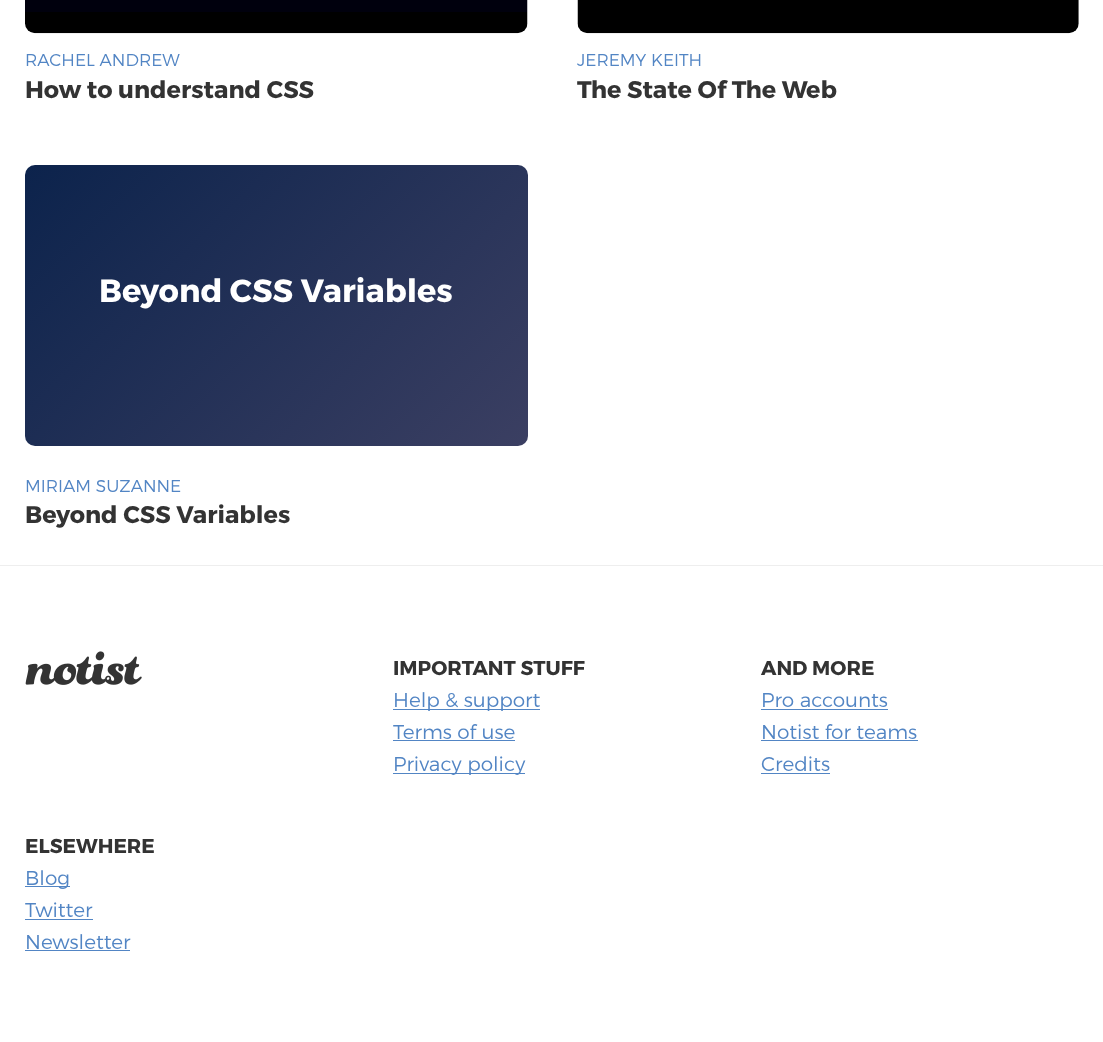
<svg xmlns="http://www.w3.org/2000/svg" width="1103" height="1042" viewBox="0 0 1103 1042">
  <defs>
    <linearGradient id="g1" gradientUnits="userSpaceOnUse" x1="80" y1="110" x2="472" y2="502"><stop offset="0" stop-color="#0c234c"/><stop offset="1" stop-color="#3b3f62"/></linearGradient>
  </defs>
  <rect width="100%" height="100%" fill="#ffffff"/>
  <rect x="0" y="565" width="1103" height="1" fill="#eeeeee"/>
  <image x="25" y="0" width="503" height="34" href="img1.png"/>
  <text x="25" y="66" font-family="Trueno" font-size="17.1" font-weight="300" fill="#5285c4">RACHEL ANDREW</text>
  <text x="25" y="98" font-family="Trueno" font-size="24" font-weight="bold" fill="#333333">How to understand CSS</text>
  <image x="577" y="0" width="502" height="34" href="img2.png"/>
  <text x="577" y="66" font-family="Trueno" font-size="17.1" font-weight="300" fill="#5285c4">JEREMY KEITH</text>
  <text x="577" y="98" font-family="Trueno" font-size="24" font-weight="bold" fill="#333333">The State Of The Web</text>
  <rect x="25" y="165" width="503" height="281" rx="10" fill="url(#g1)"/>
  <text x="99" y="302" font-family="Trueno" font-size="32" font-weight="bold" fill="#ffffff">Beyond CSS Variables</text>
  <text x="25" y="492" font-family="Trueno" font-size="17.1" font-weight="300" fill="#5285c4">MIRIAM SUZANNE</text>
  <text x="25" y="523" font-family="Trueno" font-size="24" font-weight="bold" fill="#333333">Beyond CSS Variables</text>
  <image x="25" y="651" width="117" height="34" href="img3.png"/>
  <text x="393" y="675" font-family="Trueno" font-size="20" font-weight="bold" fill="#333333">IMPORTANT STUFF</text>
  <rect x="393" y="709" width="147" height="1" fill="#5285c4"/>
  <text x="393" y="707" font-family="Trueno" font-size="20" font-weight="300" fill="#5285c4">Help &amp; support</text>
  <text x="393" y="739" font-family="Trueno" font-size="20" font-weight="300" fill="#5285c4">Terms of use</text>
  <rect x="393" y="740" width="122" height="1" fill="#5285c4"/>
  <rect x="393" y="773" width="132" height="1" fill="#5285c4"/>
  <text x="393" y="771" font-family="Trueno" font-size="20" font-weight="300" fill="#5285c4">Privacy policy</text>
  <text x="761" y="675" font-family="Trueno" font-size="20" font-weight="bold" fill="#333333">AND MORE</text>
  <text x="761" y="707" font-family="Trueno" font-size="20" font-weight="300" fill="#5285c4">Pro accounts</text>
  <rect x="761" y="709" width="127" height="1" fill="#5285c4"/>
  <text x="761" y="739" font-family="Trueno" font-size="20" font-weight="300" fill="#5285c4">Notist for teams</text>
  <rect x="761" y="740" width="157" height="1" fill="#5285c4"/>
  <text x="761" y="771" font-family="Trueno" font-size="20" font-weight="300" fill="#5285c4">Credits</text>
  <rect x="761" y="773" width="69" height="1" fill="#5285c4"/>
  <text x="25" y="853" font-family="Trueno" font-size="20" font-weight="bold" fill="#333333">ELSEWHERE</text>
  <rect x="25" y="886" width="45" height="1" fill="#5285c4"/>
  <text x="25" y="885" font-family="Trueno" font-size="20" font-weight="300" fill="#5285c4">Blog</text>
  <text x="25" y="917" font-family="Trueno" font-size="20" font-weight="300" fill="#5285c4">Twitter</text>
  <rect x="25" y="919" width="68" height="1" fill="#5285c4"/>
  <text x="25" y="949" font-family="Trueno" font-size="20" font-weight="300" fill="#5285c4">Newsletter</text>
  <rect x="25" y="950" width="105" height="1" fill="#5285c4"/>
</svg>
